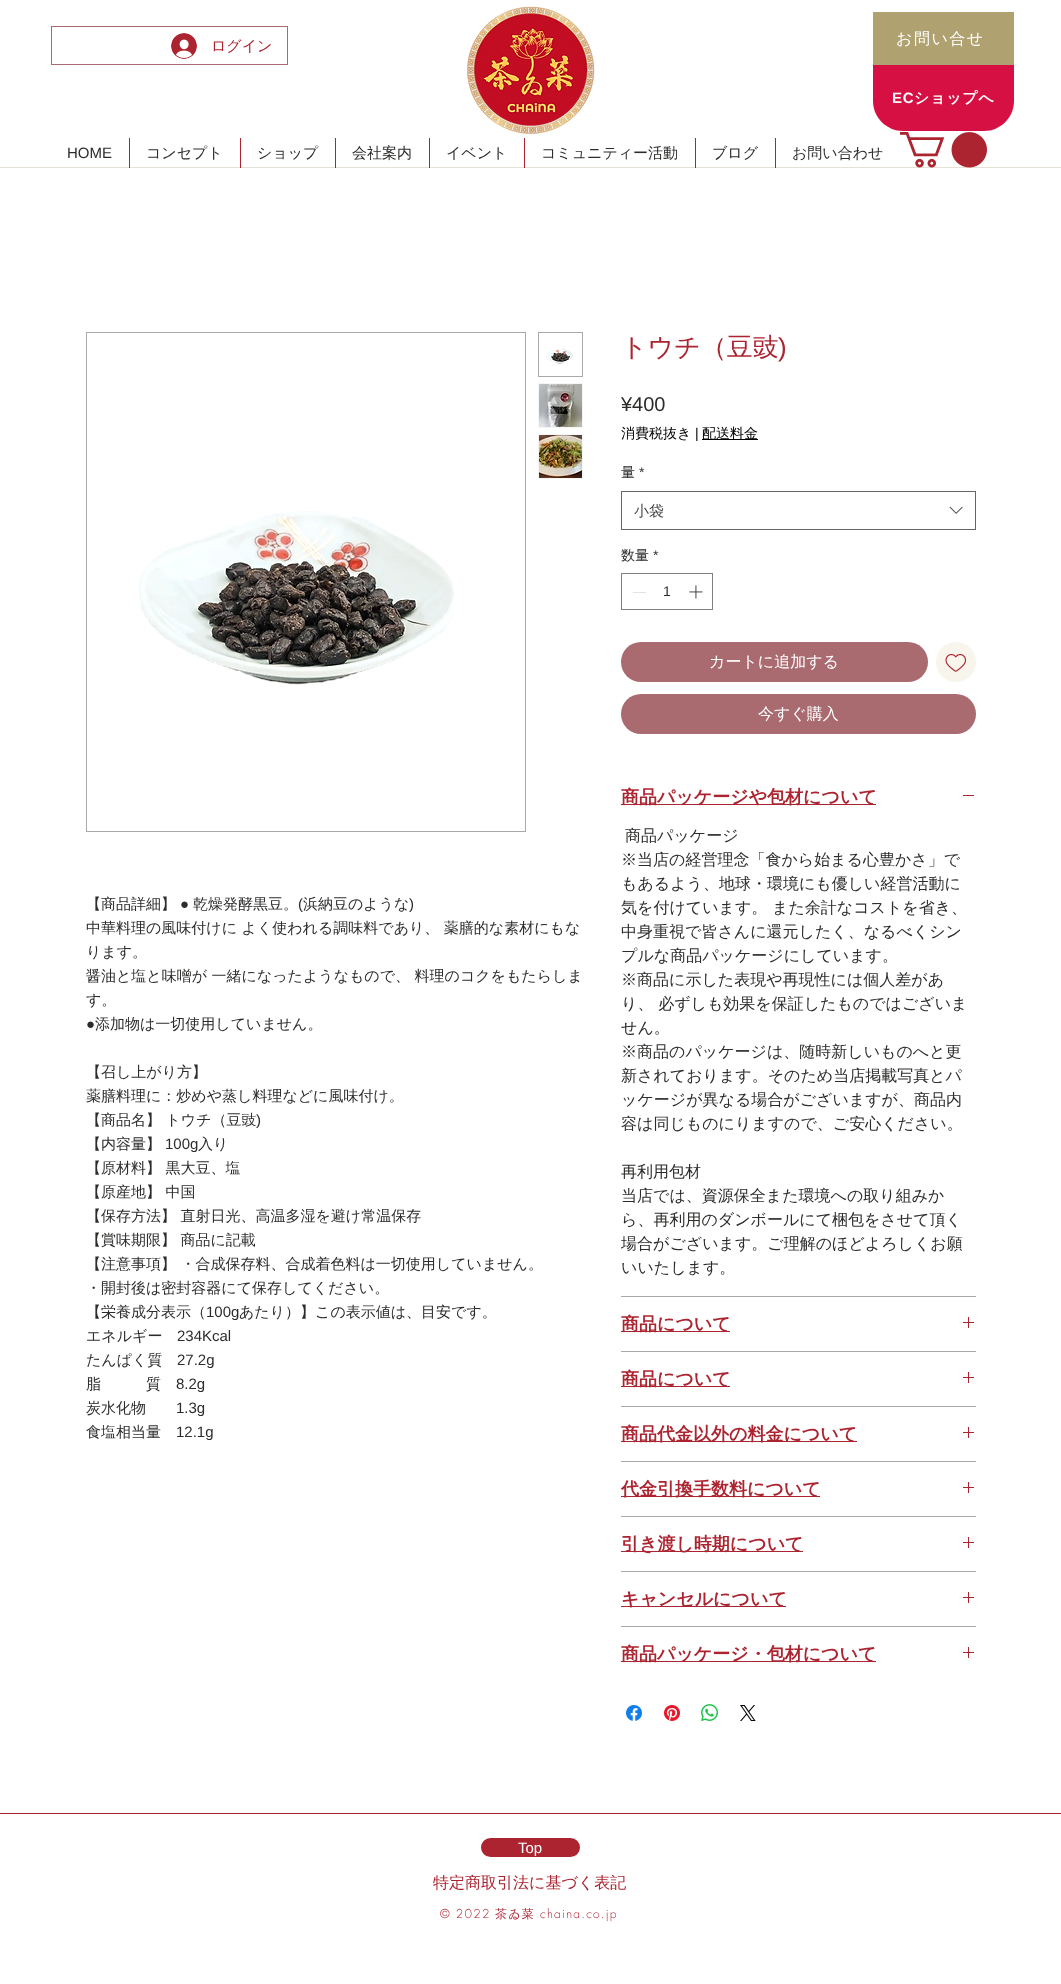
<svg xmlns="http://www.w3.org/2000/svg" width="1061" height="1984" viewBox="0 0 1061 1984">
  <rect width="100%" height="100%" fill="#ffffff"/>
  <rect x="51.5" y="26.5" width="236" height="38" fill="none" stroke="#a96a70"/>
  <image x="171" y="33" width="26" height="26" href="img1.png"/>
  <text x="211" y="51" font-family="WenQuanYi Zen Hei" font-size="15" font-weight="500" fill="#ac2430">ログイン</text>
  <image x="467" y="6" width="128" height="128" href="img2.png"/>
  <rect x="873" y="12" width="141" height="53" fill="#b0a171"/>
  <text x="896" y="44" font-family="WenQuanYi Zen Hei" font-size="16" font-weight="500" letter-spacing="1.5" fill="#ffffff">お問い合せ</text>
  <path d="M873 65H1014V101C1014 117.5 1000.5 131 984 131H903C886.5 131 873 117.5 873 101Z" fill="#d61043"/>
  <text x="892" y="103" font-family="Liberation Sans" font-size="15" font-weight="bold" letter-spacing="0.75" fill="#ffffff">EC</text>
  <text x="914" y="103" font-family="WenQuanYi Zen Hei" font-size="15" font-weight="bold" letter-spacing="0.75" fill="#ffffff">ショップへ</text>
  <text x="67" y="158" font-family="Liberation Sans" font-size="15" fill="#2c2c2b">HOME</text>
  <rect x="0" y="167" width="1061" height="1" fill="#e5e1d3"/>
  <rect x="129" y="138" width="1" height="30" fill="#ac2430"/>
  <text x="146" y="158" font-family="WenQuanYi Zen Hei" font-size="15" font-weight="500" fill="#2c2c2b">コンセプト</text>
  <rect x="240" y="138" width="1" height="30" fill="#ac2430"/>
  <text x="257" y="158" font-family="WenQuanYi Zen Hei" font-size="15" font-weight="500" fill="#2c2c2b">ショップ</text>
  <rect x="335" y="138" width="1" height="30" fill="#ac2430"/>
  <text x="352" y="158" font-family="WenQuanYi Zen Hei" font-size="15" font-weight="500" fill="#2c2c2b">会社案内</text>
  <rect x="429" y="138" width="1" height="30" fill="#ac2430"/>
  <text x="446" y="158" font-family="WenQuanYi Zen Hei" font-size="15" font-weight="500" fill="#2c2c2b">イベント</text>
  <rect x="524" y="138" width="1" height="30" fill="#ac2430"/>
  <text x="541" y="158" font-family="WenQuanYi Zen Hei" font-size="15" font-weight="500" fill="#2c2c2b">コミュニティー活動</text>
  <rect x="695" y="138" width="1" height="30" fill="#ac2430"/>
  <text x="712" y="158" font-family="WenQuanYi Zen Hei" font-size="15" font-weight="500" fill="#2c2c2b">ブログ</text>
  <rect x="775" y="138" width="1" height="30" fill="#ac2430"/>
  <text x="792" y="158" font-family="WenQuanYi Zen Hei" font-size="15" font-weight="500" fill="#2c2c2b">お問い合わせ</text>
  <image x="900" y="132" width="87" height="36" href="img3.png"/>
  <rect x="86.5" y="332.5" width="439" height="499" fill="none" stroke="#aca9a9"/>
  <image x="139" y="511" width="315" height="174" href="img4.png"/>
  <rect x="538.5" y="332.5" width="44" height="44" fill="none" stroke="#aca9a9"/>
  <image x="546" y="348" width="28" height="16" href="img5.png"/>
  <rect x="538.5" y="383.5" width="44" height="44" fill="none" stroke="#f6f5f5"/>
  <image x="539" y="384" width="43" height="43" href="img6.png"/>
  <rect x="538.5" y="434.5" width="44" height="44" fill="none" stroke="#f6f5f5"/>
  <image x="539" y="435" width="43" height="43" href="img7.png"/>
  <text x="86" y="909" font-family="WenQuanYi Zen Hei" font-size="15" font-weight="500" fill="#2c2c2b">【商品詳細】</text>
  <text x="180" y="909" font-family="Liberation Sans" font-size="15" fill="#2c2c2b">●</text>
  <text x="193" y="909" font-family="WenQuanYi Zen Hei" font-size="15" font-weight="500" fill="#2c2c2b">乾燥発酵黒豆。</text>
  <text x="298" y="909" font-family="Liberation Sans" font-size="15" fill="#2c2c2b">(</text>
  <text x="303" y="909" font-family="WenQuanYi Zen Hei" font-size="15" font-weight="500" fill="#2c2c2b">浜納豆のような</text>
  <text x="409" y="909" font-family="Liberation Sans" font-size="15" fill="#2c2c2b">)</text>
  <text x="86" y="933" font-family="WenQuanYi Zen Hei" font-size="15" font-weight="500" fill="#2c2c2b">中華料理の風味付けに よく使われる調味料であり、 薬膳的な素材にもな</text>
  <text x="86" y="957" font-family="WenQuanYi Zen Hei" font-size="15" font-weight="500" fill="#2c2c2b">ります。</text>
  <text x="86" y="981" font-family="WenQuanYi Zen Hei" font-size="15" font-weight="500" fill="#2c2c2b">醤油と塩と味噌が 一緒になったようなもので、 料理のコクをもたらしま</text>
  <text x="86" y="1005" font-family="WenQuanYi Zen Hei" font-size="15" font-weight="500" fill="#2c2c2b">す。</text>
  <text x="86" y="1029" font-family="Liberation Sans" font-size="15" fill="#2c2c2b">●</text>
  <text x="95" y="1029" font-family="WenQuanYi Zen Hei" font-size="15" font-weight="500" fill="#2c2c2b">添加物は一切使用していません。</text>
  <text x="86" y="1077" font-family="WenQuanYi Zen Hei" font-size="15" font-weight="500" fill="#2c2c2b">【召し上がり方】</text>
  <text x="86" y="1101" font-family="WenQuanYi Zen Hei" font-size="15" font-weight="500" fill="#2c2c2b">薬膳料理に：炒めや蒸し料理などに風味付け。</text>
  <text x="86" y="1125" font-family="WenQuanYi Zen Hei" font-size="15" font-weight="500" fill="#2c2c2b">【商品名】 トウチ（豆豉</text>
  <text x="256" y="1125" font-family="Liberation Sans" font-size="15" fill="#2c2c2b">)</text>
  <text x="86" y="1149" font-family="WenQuanYi Zen Hei" font-size="15" font-weight="500" fill="#2c2c2b">【内容量】</text>
  <text x="165" y="1149" font-family="Liberation Sans" font-size="15" fill="#2c2c2b">100g</text>
  <text x="198" y="1149" font-family="WenQuanYi Zen Hei" font-size="15" font-weight="500" fill="#2c2c2b">入り</text>
  <text x="86" y="1173" font-family="WenQuanYi Zen Hei" font-size="15" font-weight="500" fill="#2c2c2b">【原材料】 黒大豆、塩</text>
  <text x="86" y="1197" font-family="WenQuanYi Zen Hei" font-size="15" font-weight="500" fill="#2c2c2b">【原産地】 中国</text>
  <text x="86" y="1221" font-family="WenQuanYi Zen Hei" font-size="15" font-weight="500" fill="#2c2c2b">【保存方法】 直射日光、高温多湿を避け常温保存</text>
  <text x="86" y="1245" font-family="WenQuanYi Zen Hei" font-size="15" font-weight="500" fill="#2c2c2b">【賞味期限】 商品に記載</text>
  <text x="86" y="1269" font-family="WenQuanYi Zen Hei" font-size="15" font-weight="500" fill="#2c2c2b">【注意事項】 ・合成保存料、合成着色料は一切使用していません。</text>
  <text x="86" y="1293" font-family="WenQuanYi Zen Hei" font-size="15" font-weight="500" fill="#2c2c2b">・開封後は密封容器にて保存してください。</text>
  <text x="86" y="1317" font-family="WenQuanYi Zen Hei" font-size="15" font-weight="500" fill="#2c2c2b">【栄養成分表示（</text>
  <text x="206" y="1317" font-family="Liberation Sans" font-size="15" fill="#2c2c2b">100g</text>
  <text x="239" y="1317" font-family="WenQuanYi Zen Hei" font-size="15" font-weight="500" fill="#2c2c2b">あたり）】この表示値は、目安です。</text>
  <text x="86" y="1341" font-family="WenQuanYi Zen Hei" font-size="15" font-weight="500" fill="#2c2c2b">エネルギー</text>
  <text x="177" y="1341" font-family="Liberation Sans" font-size="15" fill="#2c2c2b">234Kcal</text>
  <text x="86" y="1365" font-family="WenQuanYi Zen Hei" font-size="15" font-weight="500" fill="#2c2c2b">たんぱく質</text>
  <text x="177" y="1365" font-family="Liberation Sans" font-size="15" fill="#2c2c2b">27.2g</text>
  <text x="86" y="1389" font-family="WenQuanYi Zen Hei" font-size="15" font-weight="500" fill="#2c2c2b">脂　　　質</text>
  <text x="176" y="1389" font-family="Liberation Sans" font-size="15" fill="#2c2c2b">8.2g</text>
  <text x="86" y="1413" font-family="WenQuanYi Zen Hei" font-size="15" font-weight="500" fill="#2c2c2b">炭水化物</text>
  <text x="176" y="1413" font-family="Liberation Sans" font-size="15" fill="#2c2c2b">1.3g</text>
  <text x="86" y="1437" font-family="WenQuanYi Zen Hei" font-size="15" font-weight="500" fill="#2c2c2b">食塩相当量</text>
  <text x="176" y="1437" font-family="Liberation Sans" font-size="15" fill="#2c2c2b">12.1g</text>
  <text x="621" y="356" font-family="WenQuanYi Zen Hei" font-size="26" font-weight="500" fill="#ac2430">トウチ（豆豉</text>
  <text x="778" y="356" font-family="Liberation Sans" font-size="26" fill="#ac2430">)</text>
  <text x="621" y="411" font-family="Liberation Sans" font-size="20" fill="#2c2c2b">¥400</text>
  <text x="621" y="438" font-family="WenQuanYi Zen Hei" font-size="14" font-weight="500" fill="#000000">消費税抜き</text>
  <text x="695" y="438" font-family="Liberation Sans" font-size="14" fill="#000000">|</text>
  <rect x="702" y="439" width="56" height="1" fill="#000000"/>
  <text x="702" y="438" font-family="WenQuanYi Zen Hei" font-size="14" font-weight="500" fill="#000000">配送料金</text>
  <text x="621" y="477" font-family="WenQuanYi Zen Hei" font-size="14" font-weight="500" fill="#2c2c2b">量</text>
  <text x="639" y="477" font-family="Liberation Sans" font-size="14" fill="#2c2c2b">*</text>
  <rect x="621.5" y="491.5" width="354" height="38" fill="none" stroke="#666666"/>
  <text x="634" y="516" font-family="WenQuanYi Zen Hei" font-size="15" font-weight="500" fill="#444444">小袋</text>
  <image x="949" y="506" width="14" height="8" href="img8.png"/>
  <text x="621" y="560" font-family="WenQuanYi Zen Hei" font-size="14" font-weight="500" fill="#2c2c2b">数量</text>
  <text x="653" y="560" font-family="Liberation Sans" font-size="14" fill="#2c2c2b">*</text>
  <rect x="621.5" y="573.5" width="91" height="36" fill="none" stroke="#808080"/>
  <rect x="633" y="592" width="13" height="1" fill="#e3e3e3"/>
  <text x="663" y="596" font-family="Liberation Sans" font-size="14" fill="#2c2c2b">1</text>
  <image x="689" y="585" width="14" height="14" href="img9.png"/>
  <rect x="621" y="642" width="307" height="40" rx="20" fill="#a96a70"/>
  <text x="709" y="667" font-family="WenQuanYi Zen Hei" font-size="16" font-weight="500" fill="#ffffff">カートに追加する</text>
  <circle cx="956" cy="662" r="20" fill="#f8f5ec"/>
  <image x="945" y="654" width="22" height="18" href="img10.png"/>
  <rect x="621" y="694" width="355" height="40" rx="20" fill="#a96a70"/>
  <text x="758" y="719" font-family="WenQuanYi Zen Hei" font-size="16" font-weight="500" fill="#ffffff">今すぐ購入</text>
  <rect x="621" y="1296" width="355" height="1" fill="#aca9a9"/>
  <rect x="621" y="804" width="255" height="1" fill="#ac2430"/>
  <text x="621" y="803" font-family="WenQuanYi Zen Hei" font-size="18" font-weight="bold" fill="#ac2430">商品パッケージや包材について</text>
  <rect x="963" y="795" width="11" height="1" fill="#ac2430"/>
  <text x="625" y="841" font-family="WenQuanYi Zen Hei" font-size="16" font-weight="500" fill="#2c2c2b">商品パッケージ</text>
  <text x="621" y="865" font-family="WenQuanYi Zen Hei" font-size="16" font-weight="500" fill="#2c2c2b">※当店の経営理念「食から始まる心豊かさ」で</text>
  <text x="621" y="889" font-family="WenQuanYi Zen Hei" font-size="16" font-weight="500" fill="#2c2c2b">もあるよう、地球・環境にも優しい経営活動に</text>
  <text x="621" y="913" font-family="WenQuanYi Zen Hei" font-size="16" font-weight="500" fill="#2c2c2b">気を付けています。 また余計なコストを省き、</text>
  <text x="621" y="937" font-family="WenQuanYi Zen Hei" font-size="16" font-weight="500" fill="#2c2c2b">中身重視で皆さんに還元したく、なるべくシン</text>
  <text x="621" y="961" font-family="WenQuanYi Zen Hei" font-size="16" font-weight="500" fill="#2c2c2b">プルな商品パッケージにしています。</text>
  <text x="621" y="985" font-family="WenQuanYi Zen Hei" font-size="16" font-weight="500" fill="#2c2c2b">※商品に示した表現や再現性には個人差があ</text>
  <text x="621" y="1009" font-family="WenQuanYi Zen Hei" font-size="16" font-weight="500" fill="#2c2c2b">り、 必ずしも効果を保証したものではございま</text>
  <text x="621" y="1033" font-family="WenQuanYi Zen Hei" font-size="16" font-weight="500" fill="#2c2c2b">せん。</text>
  <text x="621" y="1057" font-family="WenQuanYi Zen Hei" font-size="16" font-weight="500" fill="#2c2c2b">※商品のパッケージは、随時新しいものへと更</text>
  <text x="621" y="1081" font-family="WenQuanYi Zen Hei" font-size="16" font-weight="500" fill="#2c2c2b">新されております。そのため当店掲載写真とパ</text>
  <text x="621" y="1105" font-family="WenQuanYi Zen Hei" font-size="16" font-weight="500" fill="#2c2c2b">ッケージが異なる場合がございますが、商品内</text>
  <text x="621" y="1129" font-family="WenQuanYi Zen Hei" font-size="16" font-weight="500" fill="#2c2c2b">容は同じものにりますので、ご安心ください。</text>
  <text x="621" y="1177" font-family="WenQuanYi Zen Hei" font-size="16" font-weight="500" fill="#2c2c2b">再利用包材</text>
  <text x="621" y="1201" font-family="WenQuanYi Zen Hei" font-size="16" font-weight="500" fill="#2c2c2b">当店では、資源保全また環境への取り組みか</text>
  <text x="621" y="1225" font-family="WenQuanYi Zen Hei" font-size="16" font-weight="500" fill="#2c2c2b">ら、再利用のダンボールにて梱包をさせて頂く</text>
  <text x="621" y="1249" font-family="WenQuanYi Zen Hei" font-size="16" font-weight="500" fill="#2c2c2b">場合がございます。ご理解のほどよろしくお願</text>
  <text x="621" y="1273" font-family="WenQuanYi Zen Hei" font-size="16" font-weight="500" fill="#2c2c2b">いいたします。</text>
  <rect x="621" y="1351" width="355" height="1" fill="#aca9a9"/>
  <rect x="621" y="1331" width="109" height="1" fill="#ac2430"/>
  <text x="621" y="1330" font-family="WenQuanYi Zen Hei" font-size="18" font-weight="bold" fill="#ac2430">商品について</text>
  <image x="963" y="1317" width="11" height="11" href="img11.png"/>
  <rect x="621" y="1406" width="355" height="1" fill="#aca9a9"/>
  <rect x="621" y="1386" width="109" height="1" fill="#ac2430"/>
  <text x="621" y="1385" font-family="WenQuanYi Zen Hei" font-size="18" font-weight="bold" fill="#ac2430">商品について</text>
  <image x="963" y="1372" width="11" height="11" href="img11.png"/>
  <rect x="621" y="1461" width="355" height="1" fill="#aca9a9"/>
  <rect x="621" y="1441" width="236" height="1" fill="#ac2430"/>
  <text x="621" y="1440" font-family="WenQuanYi Zen Hei" font-size="18" font-weight="bold" fill="#ac2430">商品代金以外の料金について</text>
  <image x="963" y="1427" width="11" height="11" href="img11.png"/>
  <rect x="621" y="1516" width="355" height="1" fill="#aca9a9"/>
  <rect x="621" y="1496" width="199" height="1" fill="#ac2430"/>
  <text x="621" y="1495" font-family="WenQuanYi Zen Hei" font-size="18" font-weight="bold" fill="#ac2430">代金引換手数料について</text>
  <image x="963" y="1482" width="11" height="11" href="img11.png"/>
  <rect x="621" y="1571" width="355" height="1" fill="#aca9a9"/>
  <rect x="621" y="1551" width="182" height="1" fill="#ac2430"/>
  <text x="621" y="1550" font-family="WenQuanYi Zen Hei" font-size="18" font-weight="bold" fill="#ac2430">引き渡し時期について</text>
  <image x="963" y="1537" width="11" height="11" href="img11.png"/>
  <rect x="621" y="1626" width="355" height="1" fill="#aca9a9"/>
  <rect x="621" y="1606" width="165" height="1" fill="#ac2430"/>
  <text x="621" y="1605" font-family="WenQuanYi Zen Hei" font-size="18" font-weight="bold" fill="#ac2430">キャンセルについて</text>
  <image x="963" y="1592" width="11" height="11" href="img11.png"/>
  <rect x="621" y="1661" width="255" height="1" fill="#ac2430"/>
  <text x="621" y="1660" font-family="WenQuanYi Zen Hei" font-size="18" font-weight="bold" fill="#ac2430">商品パッケージ・包材について</text>
  <image x="963" y="1647" width="11" height="11" href="img11.png"/>
  <image x="626" y="1705" width="16" height="16" href="img12.png"/>
  <image x="664" y="1705" width="16" height="16" href="img13.png"/>
  <image x="701" y="1704" width="17" height="17" href="img14.png"/>
  <image x="740" y="1705" width="16" height="16" href="img15.png"/>
  <rect x="0" y="1813" width="1061" height="1" fill="#ac2430"/>
  <rect x="482" y="1839" width="97" height="17" rx="8.5" fill="#ac2430" stroke="#ac2430" stroke-width="2"/>
  <text x="518" y="1853" font-family="Liberation Sans" font-size="15" fill="#ffffff">Top</text>
  <text x="433" y="1888" font-family="WenQuanYi Zen Hei" font-size="16" font-weight="500" fill="#ac2430">特定商取引法に基づく表記</text>
  <text x="440" y="1918" font-family="futura" font-size="12" font-weight="300" letter-spacing="1.25" fill="#ac2430">© 2022</text>
  <text x="495" y="1918" font-family="WenQuanYi Zen Hei" font-size="12" font-weight="500" letter-spacing="1.25" fill="#ac2430">茶ゐ菜</text>
  <text x="540" y="1918" font-family="futura" font-size="12" font-weight="300" letter-spacing="1.25" fill="#ac2430">chaina.co.jp</text>
</svg>
